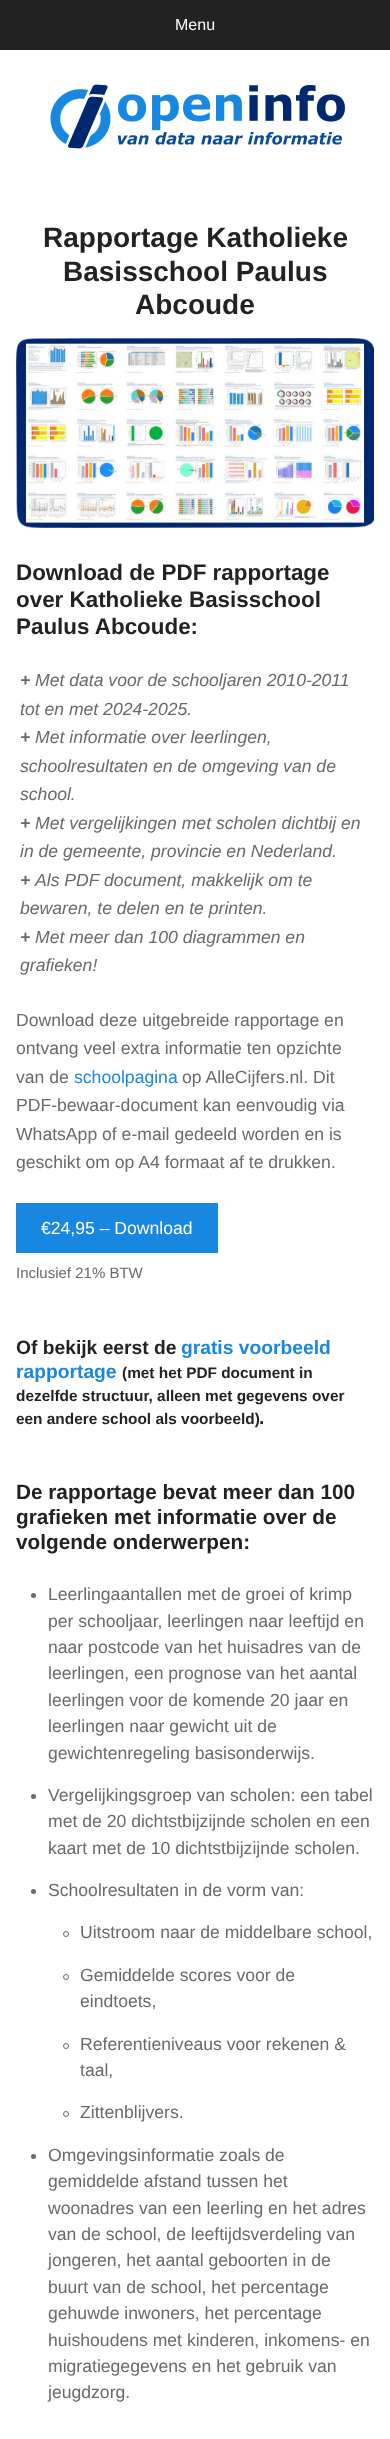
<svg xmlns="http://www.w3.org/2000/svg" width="390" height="2439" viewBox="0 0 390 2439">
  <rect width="100%" height="100%" fill="#ffffff"/>
  <rect x="0" y="0" width="390" height="50" fill="#222222"/>
  <text x="175" y="30" font-family="Liberation Sans" font-size="16" fill="#ffffff">Menu</text>
  <image x="50" y="84" width="295" height="65" href="img1.png"/>
  <text x="43" y="247" font-family="Liberation Sans" font-size="28" font-weight="bold" fill="#222222">Rapportage Katholieke</text>
  <text x="63" y="281" font-family="Liberation Sans" font-size="28" font-weight="bold" fill="#222222">Basisschool Paulus</text>
  <text x="135" y="314" font-family="Liberation Sans" font-size="28" font-weight="bold" fill="#222222">Abcoude</text>
  <image x="16" y="338" width="358" height="190" href="img2.png"/>
  <text x="16" y="580" font-family="Liberation Sans" font-size="22.4" font-weight="bold" fill="#222222">Download de PDF rapportage</text>
  <text x="16" y="607" font-family="Liberation Sans" font-size="22.4" font-weight="bold" fill="#222222">over Katholieke Basisschool</text>
  <text x="16" y="634" font-family="Liberation Sans" font-size="22.4" font-weight="bold" fill="#222222">Paulus Abcoude:</text>
  <text x="20" y="686" font-family="Liberation Sans" font-size="17.6" font-weight="bold" font-style="italic" fill="#696969">+</text>
  <text x="35" y="686" font-family="Liberation Sans" font-size="17.6" font-style="italic" fill="#696969">Met data voor de schooljaren 2010-2011</text>
  <text x="20" y="715" font-family="Liberation Sans" font-size="17.6" font-style="italic" fill="#696969">tot en met 2024-2025.</text>
  <text x="20" y="743" font-family="Liberation Sans" font-size="17.6" font-weight="bold" font-style="italic" fill="#696969">+</text>
  <text x="35" y="743" font-family="Liberation Sans" font-size="17.6" font-style="italic" fill="#696969">Met informatie over leerlingen,</text>
  <text x="20" y="772" font-family="Liberation Sans" font-size="17.6" font-style="italic" fill="#696969">schoolresultaten en de omgeving van de</text>
  <text x="20" y="800" font-family="Liberation Sans" font-size="17.6" font-style="italic" fill="#696969">school.</text>
  <text x="20" y="829" font-family="Liberation Sans" font-size="17.6" font-weight="bold" font-style="italic" fill="#696969">+</text>
  <text x="35" y="829" font-family="Liberation Sans" font-size="17.6" font-style="italic" fill="#696969">Met vergelijkingen met scholen dichtbij en</text>
  <text x="20" y="857" font-family="Liberation Sans" font-size="17.6" font-style="italic" fill="#696969">in de gemeente, provincie en Nederland.</text>
  <text x="20" y="886" font-family="Liberation Sans" font-size="17.6" font-weight="bold" font-style="italic" fill="#696969">+</text>
  <text x="35" y="886" font-family="Liberation Sans" font-size="17.6" font-style="italic" fill="#696969">Als PDF document, makkelijk om te</text>
  <text x="20" y="914" font-family="Liberation Sans" font-size="17.6" font-style="italic" fill="#696969">bewaren, te delen en te printen.</text>
  <text x="20" y="943" font-family="Liberation Sans" font-size="17.6" font-weight="bold" font-style="italic" fill="#696969">+</text>
  <text x="35" y="943" font-family="Liberation Sans" font-size="17.6" font-style="italic" fill="#696969">Met meer dan 100 diagrammen en</text>
  <text x="20" y="971" font-family="Liberation Sans" font-size="17.6" font-style="italic" fill="#696969">grafieken!</text>
  <text x="16" y="1026" font-family="Liberation Sans" font-size="17.6" fill="#696969">Download deze uitgebreide rapportage en</text>
  <text x="16" y="1054" font-family="Liberation Sans" font-size="17.6" fill="#696969">ontvang veel extra informatie ten opzichte</text>
  <text x="16" y="1083" font-family="Liberation Sans" font-size="17.6" fill="#696969">van de</text>
  <text x="74" y="1083" font-family="Liberation Sans" font-size="17.6" fill="#1787e0">schoolpagina</text>
  <text x="182" y="1083" font-family="Liberation Sans" font-size="17.6" fill="#696969">op AlleCijfers.nl. Dit</text>
  <text x="16" y="1111" font-family="Liberation Sans" font-size="17.6" fill="#696969">PDF-bewaar-document kan eenvoudig via</text>
  <text x="16" y="1140" font-family="Liberation Sans" font-size="17.6" fill="#696969">WhatsApp of e-mail gedeeld worden en is</text>
  <text x="16" y="1168" font-family="Liberation Sans" font-size="17.6" fill="#696969">geschikt om op A4 formaat af te drukken.</text>
  <rect x="16" y="1203" width="202" height="50" fill="#1787e0"/>
  <text x="41" y="1234" font-family="Liberation Sans" font-size="17.6" fill="#ffffff">€24,95 – Download</text>
  <text x="16" y="1278" font-family="Liberation Sans" font-size="15" fill="#696969">Inclusief 21% BTW</text>
  <text x="16" y="1354" font-family="Liberation Sans" font-size="19.25" font-weight="bold" fill="#222222">Of bekijk eerst de</text>
  <text x="181" y="1354" font-family="Liberation Sans" font-size="19.25" font-weight="bold" fill="#1787e0">gratis voorbeeld</text>
  <text x="16" y="1378" font-family="Liberation Sans" font-size="19.25" font-weight="bold" fill="#1787e0">rapportage</text>
  <text x="122" y="1378" font-family="Liberation Sans" font-size="15.4" font-weight="bold" fill="#222222">(met het PDF document in</text>
  <text x="16" y="1401" font-family="Liberation Sans" font-size="15.4" font-weight="bold" fill="#222222">dezelfde structuur, alleen met gegevens over</text>
  <text x="16" y="1424" font-family="Liberation Sans" font-size="15.4" font-weight="bold" fill="#222222">een andere school als voorbeeld)</text>
  <text x="259" y="1424" font-family="Liberation Sans" font-size="19.25" font-weight="bold" fill="#222222">.</text>
  <text x="16" y="1499" font-family="Liberation Sans" font-size="20.75" font-weight="bold" fill="#222222">De rapportage bevat meer dan 100</text>
  <text x="16" y="1524" font-family="Liberation Sans" font-size="20.75" font-weight="bold" fill="#222222">grafieken met informatie over de</text>
  <text x="16" y="1549" font-family="Liberation Sans" font-size="20.75" font-weight="bold" fill="#222222">volgende onderwerpen:</text>
  <circle cx="33.5" cy="1595.5" r="2.5" fill="#696969"/>
  <text x="48" y="1600" font-family="Liberation Sans" font-size="17.6" fill="#696969">Leerlingaantallen met de groei of krimp</text>
  <text x="48" y="1627" font-family="Liberation Sans" font-size="17.6" fill="#696969">per schooljaar, leerlingen naar leeftijd en</text>
  <text x="48" y="1653" font-family="Liberation Sans" font-size="17.6" fill="#696969">naar postcode van het huisadres van de</text>
  <text x="48" y="1679" font-family="Liberation Sans" font-size="17.6" fill="#696969">leerlingen, een prognose van het aantal</text>
  <text x="48" y="1706" font-family="Liberation Sans" font-size="17.6" fill="#696969">leerlingen voor de komende 20 jaar en</text>
  <text x="48" y="1732" font-family="Liberation Sans" font-size="17.6" fill="#696969">leerlingen naar gewicht uit de</text>
  <text x="48" y="1759" font-family="Liberation Sans" font-size="17.6" fill="#696969">gewichtenregeling basisonderwijs.</text>
  <circle cx="33.5" cy="1796.5" r="2.5" fill="#696969"/>
  <text x="48" y="1801" font-family="Liberation Sans" font-size="17.6" fill="#696969">Vergelijkingsgroep van scholen: een tabel</text>
  <text x="48" y="1827" font-family="Liberation Sans" font-size="17.6" fill="#696969">met de 20 dichtstbijzijnde scholen en een</text>
  <text x="48" y="1854" font-family="Liberation Sans" font-size="17.6" fill="#696969">kaart met de 10 dichtstbijzijnde scholen.</text>
  <circle cx="33.5" cy="1891.5" r="2.5" fill="#696969"/>
  <text x="48" y="1896" font-family="Liberation Sans" font-size="17.6" fill="#696969">Schoolresultaten in de vorm van:</text>
  <circle cx="66" cy="1934" r="2.5" fill="none" stroke="#696969"/>
  <text x="80" y="1938" font-family="Liberation Sans" font-size="17.6" fill="#696969">Uitstroom naar de middelbare school,</text>
  <circle cx="66" cy="1977" r="2.5" fill="none" stroke="#696969"/>
  <text x="80" y="1981" font-family="Liberation Sans" font-size="17.6" fill="#696969">Gemiddelde scores voor de</text>
  <text x="80" y="2007" font-family="Liberation Sans" font-size="17.6" fill="#696969">eindtoets,</text>
  <circle cx="66" cy="2046" r="2.5" fill="none" stroke="#696969"/>
  <text x="80" y="2050" font-family="Liberation Sans" font-size="17.6" fill="#696969">Referentieniveaus voor rekenen &amp;</text>
  <text x="80" y="2076" font-family="Liberation Sans" font-size="17.6" fill="#696969">taal,</text>
  <circle cx="66" cy="2114" r="2.5" fill="none" stroke="#696969"/>
  <text x="80" y="2118" font-family="Liberation Sans" font-size="17.6" fill="#696969">Zittenblijvers.</text>
  <circle cx="33.5" cy="2156.5" r="2.5" fill="#696969"/>
  <text x="48" y="2161" font-family="Liberation Sans" font-size="17.6" fill="#696969">Omgevingsinformatie zoals de</text>
  <text x="48" y="2187" font-family="Liberation Sans" font-size="17.6" fill="#696969">gemiddelde afstand tussen het</text>
  <text x="48" y="2214" font-family="Liberation Sans" font-size="17.6" fill="#696969">woonadres van een leerling en het adres</text>
  <text x="48" y="2240" font-family="Liberation Sans" font-size="17.6" fill="#696969">van de school, de leeftijdsverdeling van</text>
  <text x="48" y="2266" font-family="Liberation Sans" font-size="17.6" fill="#696969">jongeren, het aantal geboorten in de</text>
  <text x="48" y="2293" font-family="Liberation Sans" font-size="17.6" fill="#696969">buurt van de school, het percentage</text>
  <text x="48" y="2319" font-family="Liberation Sans" font-size="17.6" fill="#696969">gehuwde inwoners, het percentage</text>
  <text x="48" y="2346" font-family="Liberation Sans" font-size="17.6" fill="#696969">huishoudens met kinderen, inkomens- en</text>
  <text x="48" y="2372" font-family="Liberation Sans" font-size="17.6" fill="#696969">migratiegegevens en het gebruik van</text>
  <text x="48" y="2398" font-family="Liberation Sans" font-size="17.6" fill="#696969">jeugdzorg.</text>
</svg>
